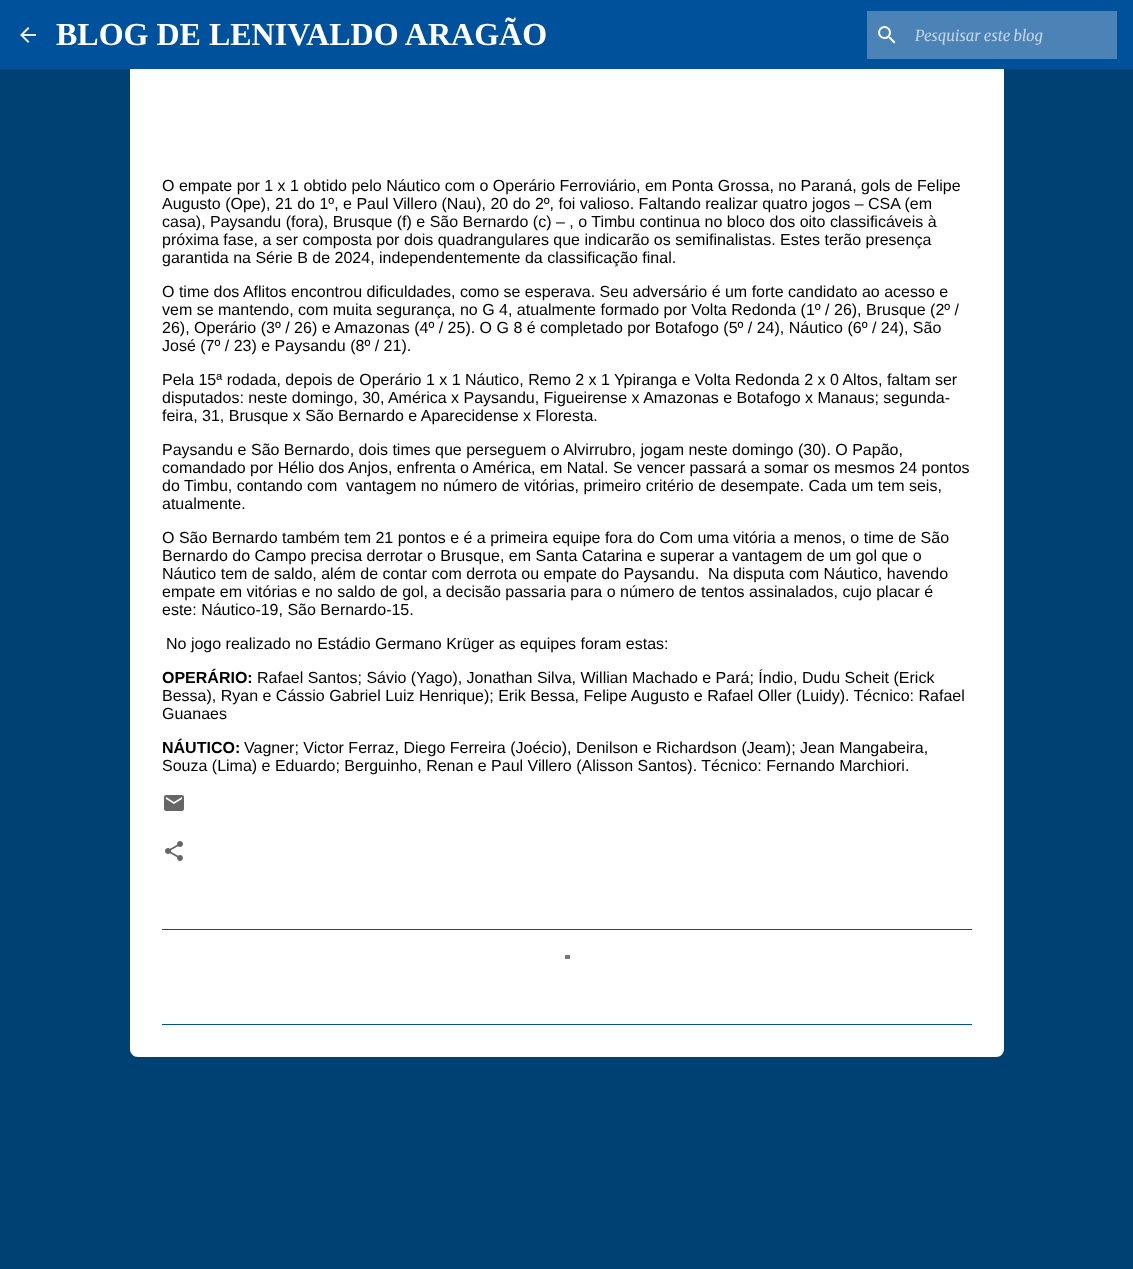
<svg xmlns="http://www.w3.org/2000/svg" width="1133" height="1269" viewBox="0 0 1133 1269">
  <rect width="100%" height="100%" fill="#004174"/>
  <rect x="0" y="0" width="1133" height="69" fill="#00519b"/>
  <image x="20" y="27" width="16" height="16" href="img1.png"/>
  <text x="56" y="45" font-family="Tinos" font-size="32" font-weight="bold" fill="#ffffff">BLOG DE LENIVALDO ARAGÃO</text>
  <rect x="867" y="11" width="250" height="48" fill="#4b83b7"/>
  <image x="878" y="26" width="18" height="18" href="img2.png"/>
  <text x="915" y="41" font-family="Merriweather" font-size="15" font-style="italic" fill="#c2d5e7">Pesquisar este blog</text>
  <rect x="130" y="69" width="874" height="860" fill="#ffffff"/>
  <text x="162" y="191" font-family="Liberation Sans" font-size="16" fill="#000000">O empate por 1 x 1 obtido pelo Náutico com o Operário Ferroviário, em Ponta Grossa, no Paraná, gols de Felipe</text>
  <text x="162" y="209" font-family="Liberation Sans" font-size="16" fill="#000000">Augusto (Ope), 21 do 1º, e Paul Villero (Nau), 20 do 2º, foi valioso. Faltando realizar quatro jogos – CSA (em</text>
  <text x="162" y="227" font-family="Liberation Sans" font-size="16" fill="#000000">casa), Paysandu (fora), Brusque (f) e São Bernardo (c) – , o Timbu continua no bloco dos oito classificáveis à</text>
  <text x="162" y="245" font-family="Liberation Sans" font-size="16" fill="#000000">próxima fase, a ser composta por dois quadrangulares que indicarão os semifinalistas. Estes terão presença</text>
  <text x="162" y="263" font-family="Liberation Sans" font-size="16" fill="#000000">garantida na Série B de 2024, independentemente da classificação final.</text>
  <text x="162" y="297" font-family="Liberation Sans" font-size="16" fill="#000000">O time dos Aflitos encontrou dificuldades, como se esperava. Seu adversário é um forte candidato ao acesso e</text>
  <text x="162" y="315" font-family="Liberation Sans" font-size="16" fill="#000000">vem se mantendo, com muita segurança, no G 4, atualmente formado por Volta Redonda (1º / 26), Brusque (2º /</text>
  <text x="162" y="333" font-family="Liberation Sans" font-size="16" fill="#000000">26), Operário (3º / 26) e Amazonas (4º / 25). O G 8 é completado por Botafogo (5º / 24), Náutico (6º / 24), São</text>
  <text x="162" y="351" font-family="Liberation Sans" font-size="16" fill="#000000">José (7º / 23) e Paysandu (8º / 21).</text>
  <text x="162" y="385" font-family="Liberation Sans" font-size="16" fill="#000000">Pela 15ª rodada, depois de Operário 1 x 1 Náutico, Remo 2 x 1 Ypiranga e Volta Redonda 2 x 0 Altos, faltam ser</text>
  <text x="162" y="403" font-family="Liberation Sans" font-size="16" fill="#000000">disputados: neste domingo, 30, América x Paysandu, Figueirense x Amazonas e Botafogo x Manaus; segunda-</text>
  <text x="162" y="421" font-family="Liberation Sans" font-size="16" fill="#000000">feira, 31, Brusque x São Bernardo e Aparecidense x Floresta.</text>
  <text x="162" y="455" font-family="Liberation Sans" font-size="16" fill="#000000">Paysandu e São Bernardo, dois times que perseguem o Alvirrubro, jogam neste domingo (30). O Papão,</text>
  <text x="162" y="473" font-family="Liberation Sans" font-size="16" fill="#000000">comandado por Hélio dos Anjos, enfrenta o América, em Natal. Se vencer passará a somar os mesmos 24 pontos</text>
  <text x="162" y="491" font-family="Liberation Sans" font-size="16" fill="#000000">do Timbu, contando com</text>
  <text x="346" y="491" font-family="Liberation Sans" font-size="16" fill="#000000">vantagem no número de vitórias, primeiro critério de desempate. Cada um tem seis,</text>
  <text x="162" y="509" font-family="Liberation Sans" font-size="16" fill="#000000">atualmente.</text>
  <text x="162" y="543" font-family="Liberation Sans" font-size="16" fill="#000000">O São Bernardo também tem 21 pontos e é a primeira equipe fora do Com uma vitória a menos, o time de São</text>
  <text x="162" y="561" font-family="Liberation Sans" font-size="16" fill="#000000">Bernardo do Campo precisa derrotar o Brusque, em Santa Catarina e superar a vantagem de um gol que o</text>
  <text x="162" y="579" font-family="Liberation Sans" font-size="16" fill="#000000">Náutico tem de saldo, além de contar com derrota ou empate do Paysandu.</text>
  <text x="708" y="579" font-family="Liberation Sans" font-size="16" fill="#000000">Na disputa com Náutico, havendo</text>
  <text x="162" y="597" font-family="Liberation Sans" font-size="16" fill="#000000">empate em vitórias e no saldo de gol, a decisão passaria para o número de tentos assinalados, cujo placar é</text>
  <text x="162" y="615" font-family="Liberation Sans" font-size="16" fill="#000000">este: Náutico-19, São Bernardo-15.</text>
  <text x="166" y="649" font-family="Liberation Sans" font-size="16" fill="#000000">No jogo realizado no Estádio Germano Krüger as equipes foram estas:</text>
  <text x="162" y="683" font-family="Liberation Sans" font-size="16" font-weight="bold" fill="#000000">OPERÁRIO:</text>
  <text x="257" y="683" font-family="Liberation Sans" font-size="16" fill="#000000">Rafael Santos; Sávio (Yago), Jonathan Silva, Willian Machado e Pará; Índio, Dudu Scheit (Erick</text>
  <text x="162" y="701" font-family="Liberation Sans" font-size="16" fill="#000000">Bessa), Ryan e Cássio Gabriel Luiz Henrique); Erik Bessa, Felipe Augusto e Rafael Oller (Luidy). Técnico: Rafael</text>
  <text x="162" y="719" font-family="Liberation Sans" font-size="16" fill="#000000">Guanaes</text>
  <text x="162" y="753" font-family="Liberation Sans" font-size="16" font-weight="bold" fill="#000000">NÁUTICO:</text>
  <text x="244" y="753" font-family="Liberation Sans" font-size="16" fill="#000000">Vagner; Victor Ferraz, Diego Ferreira (Joécio), Denilson e Richardson (Jeam); Jean Mangabeira,</text>
  <text x="162" y="771" font-family="Liberation Sans" font-size="16" fill="#000000">Souza (Lima) e Eduardo; Berguinho, Renan e Paul Villero (Alisson Santos). Técnico: Fernando Marchiori.</text>
  <image x="164" y="795" width="20" height="16" href="img3.png"/>
  <image x="165" y="841" width="18" height="20" href="img4.png"/>
  <path d="M130 929H1004V1049C1004 1053.5 1000.5 1057 996 1057H138C133.5 1057 130 1053.5 130 1049Z" fill="#ffffff"/>
  <rect x="162" y="929" width="810" height="1" fill="#00519b"/>
  <rect x="162" y="1024" width="810" height="1" fill="#00519b"/>
  <rect x="565" y="955" width="5" height="4" fill="#757575"/>
</svg>
